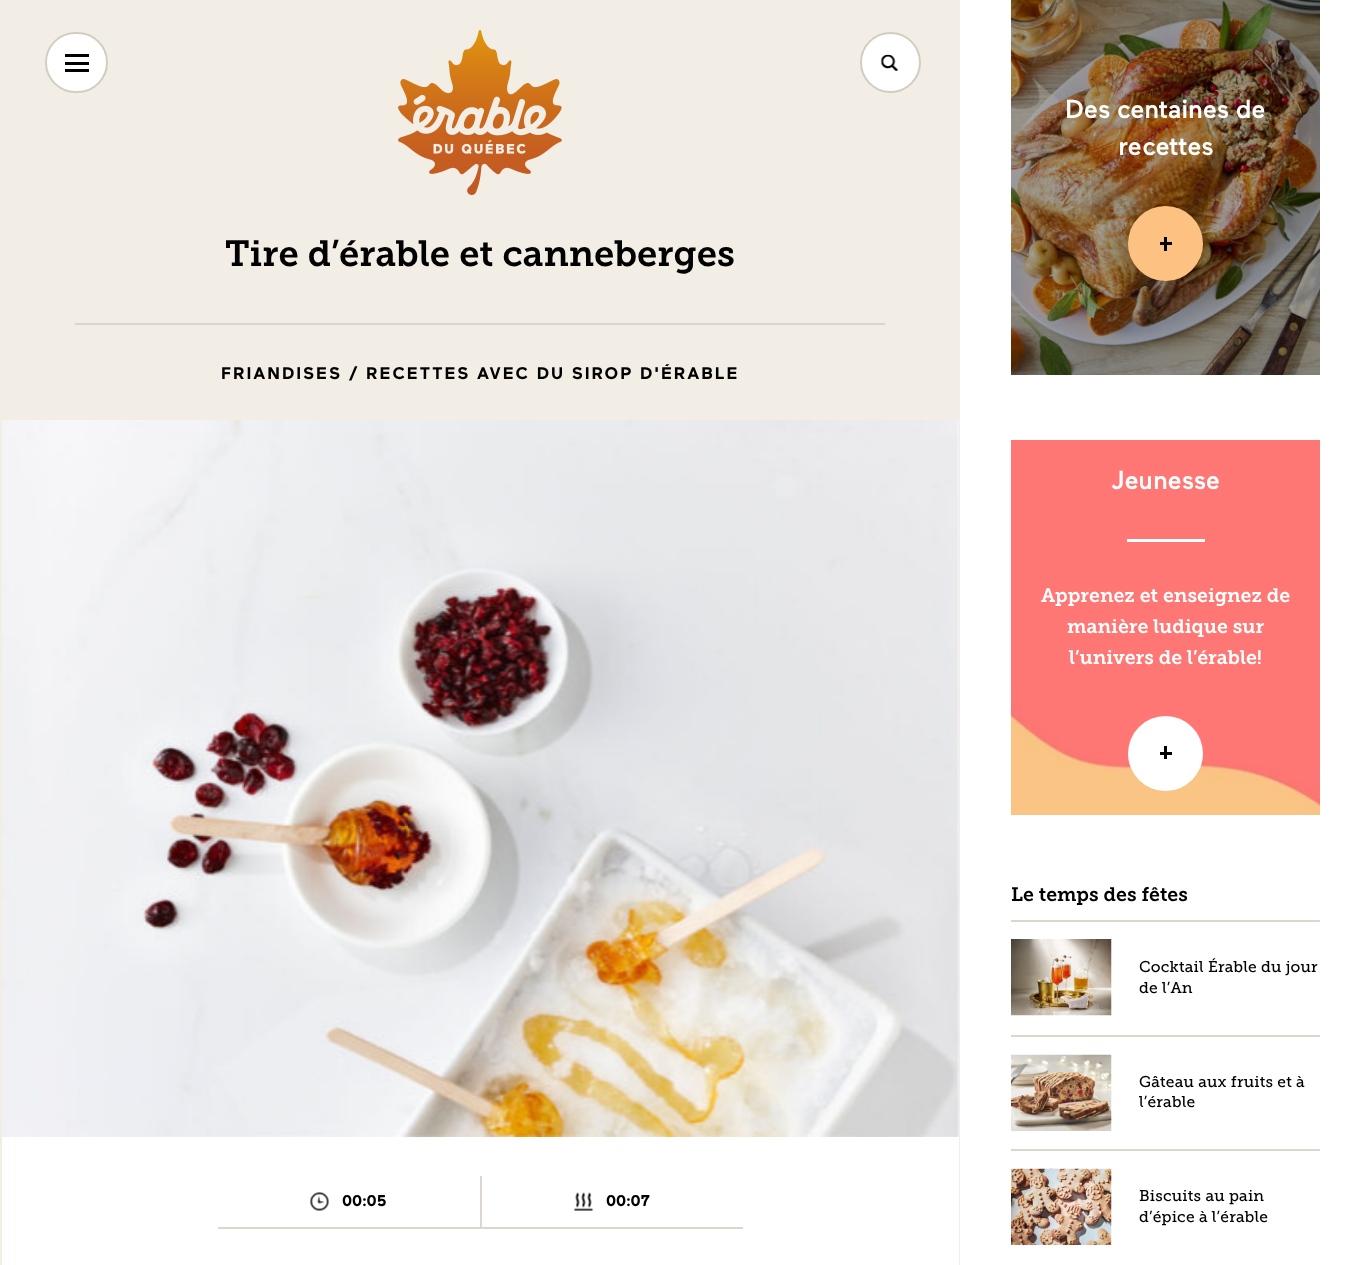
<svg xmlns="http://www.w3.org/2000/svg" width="1371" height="1265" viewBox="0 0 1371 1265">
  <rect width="100%" height="100%" fill="#f2eee5"/>
  <rect x="46" y="33" width="61" height="59" rx="29.5" fill="#ffffff" stroke="#d3cdc1" stroke-width="2"/>
  <rect x="65" y="62" width="24" height="3" fill="#000000"/>
  <rect x="65" y="54" width="24" height="3" fill="#000000"/>
  <rect x="65" y="69" width="24" height="3" fill="#000000"/>
  <image x="398" y="30" width="164" height="165" href="img1.png"/>
  <circle cx="890.5" cy="62.5" r="29.5" fill="#ffffff" stroke="#d3cdc1" stroke-width="2"/>
  <image x="880" y="54" width="19" height="17" href="img2.png"/>
  <text x="225" y="266" font-family="'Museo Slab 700'" font-size="36.4" font-weight="600" fill="#000000">Tire d’érable et canneberges</text>
  <rect x="75" y="323" width="810" height="2" fill="#dcd6cc"/>
  <text x="221" y="379" font-family="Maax" font-size="16.9" font-weight="bold" letter-spacing="1.95" fill="#000000">FRIANDISES / RECETTES AVEC DU SIROP D'ÉRABLE</text>
  <rect x="2" y="420" width="957" height="845" fill="#ffffff"/>
  <image x="2" y="420" width="957" height="717" href="img3.png"/>
  <rect x="218" y="1227" width="525" height="2" fill="#dcd6cc"/>
  <image x="310" y="1192" width="19" height="19" href="img4.png"/>
  <text x="342" y="1206" font-family="Maax" font-size="15.6" font-weight="bold" fill="#000000">00:05</text>
  <rect x="480" y="1176" width="2" height="51" fill="#dcd6cc"/>
  <image x="574" y="1192" width="19" height="19" href="img5.png"/>
  <text x="606" y="1206" font-family="Maax" font-size="15.6" font-weight="bold" fill="#000000">00:07</text>
  <rect x="960" y="0" width="411" height="1265" fill="#ffffff"/>
  <image x="1011" y="0" width="309" height="375" href="img6.png"/>
  <text x="1065" y="118" font-family="Maax" font-size="26" font-weight="500" fill="#ffffff">Des centaines de</text>
  <text x="1118" y="155" font-family="Maax" font-size="26" font-weight="500" fill="#ffffff">recettes</text>
  <circle cx="1165.5" cy="243.5" r="37.5" fill="#fdc282"/>
  <rect x="1160" y="242" width="12" height="3" fill="#000000"/>
  <rect x="1164" y="237" width="3" height="14" fill="#000000"/>
  <image x="1011" y="440" width="309" height="375" href="img7.png"/>
  <text x="1111" y="489" font-family="Maax" font-size="26" font-weight="500" fill="#ffffff">Jeunesse</text>
  <rect x="1127" y="539" width="78" height="3" fill="#ffffff"/>
  <text x="1041" y="602" font-family="'Museo Slab 700'" font-size="19.5" font-weight="600" fill="#ffffff">Apprenez et enseignez de</text>
  <text x="1067" y="633" font-family="'Museo Slab 700'" font-size="19.5" font-weight="600" fill="#ffffff">manière ludique sur</text>
  <text x="1069" y="664" font-family="'Museo Slab 700'" font-size="19.5" font-weight="600" fill="#ffffff">l’univers de l’érable!</text>
  <circle cx="1165.5" cy="753.5" r="37.5" fill="#ffffff"/>
  <rect x="1160" y="752" width="12" height="3" fill="#000000"/>
  <rect x="1164" y="746" width="3" height="13" fill="#000000"/>
  <text x="1011" y="901" font-family="'Museo Slab 700'" font-size="19.5" font-weight="600" fill="#000000">Le temps des fêtes</text>
  <rect x="1011" y="920" width="309" height="2" fill="#dcd6cc"/>
  <rect x="1011" y="1035" width="309" height="2" fill="#dcd6cc"/>
  <image x="1011" y="939" width="101" height="77" href="img8.png"/>
  <text x="1139" y="972" font-family="'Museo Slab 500'" font-size="15.6" letter-spacing="0.2" fill="#000000">Cocktail Érable du jour</text>
  <text x="1139" y="993" font-family="'Museo Slab 500'" font-size="15.6" letter-spacing="0.2" fill="#000000">de l’An</text>
  <rect x="1011" y="1149" width="309" height="2" fill="#dcd6cc"/>
  <image x="1011" y="1054" width="101" height="77" href="img9.png"/>
  <text x="1139" y="1087" font-family="'Museo Slab 500'" font-size="15.6" letter-spacing="0.2" fill="#000000">Gâteau aux fruits et à</text>
  <text x="1139" y="1107" font-family="'Museo Slab 500'" font-size="15.6" letter-spacing="0.2" fill="#000000">l’érable</text>
  <image x="1011" y="1168" width="101" height="77" href="img10.png"/>
  <text x="1139" y="1201" font-family="'Museo Slab 500'" font-size="15.6" letter-spacing="0.2" fill="#000000">Biscuits au pain</text>
  <text x="1139" y="1222" font-family="'Museo Slab 500'" font-size="15.6" letter-spacing="0.2" fill="#000000">d’épice à l’érable</text>
</svg>
